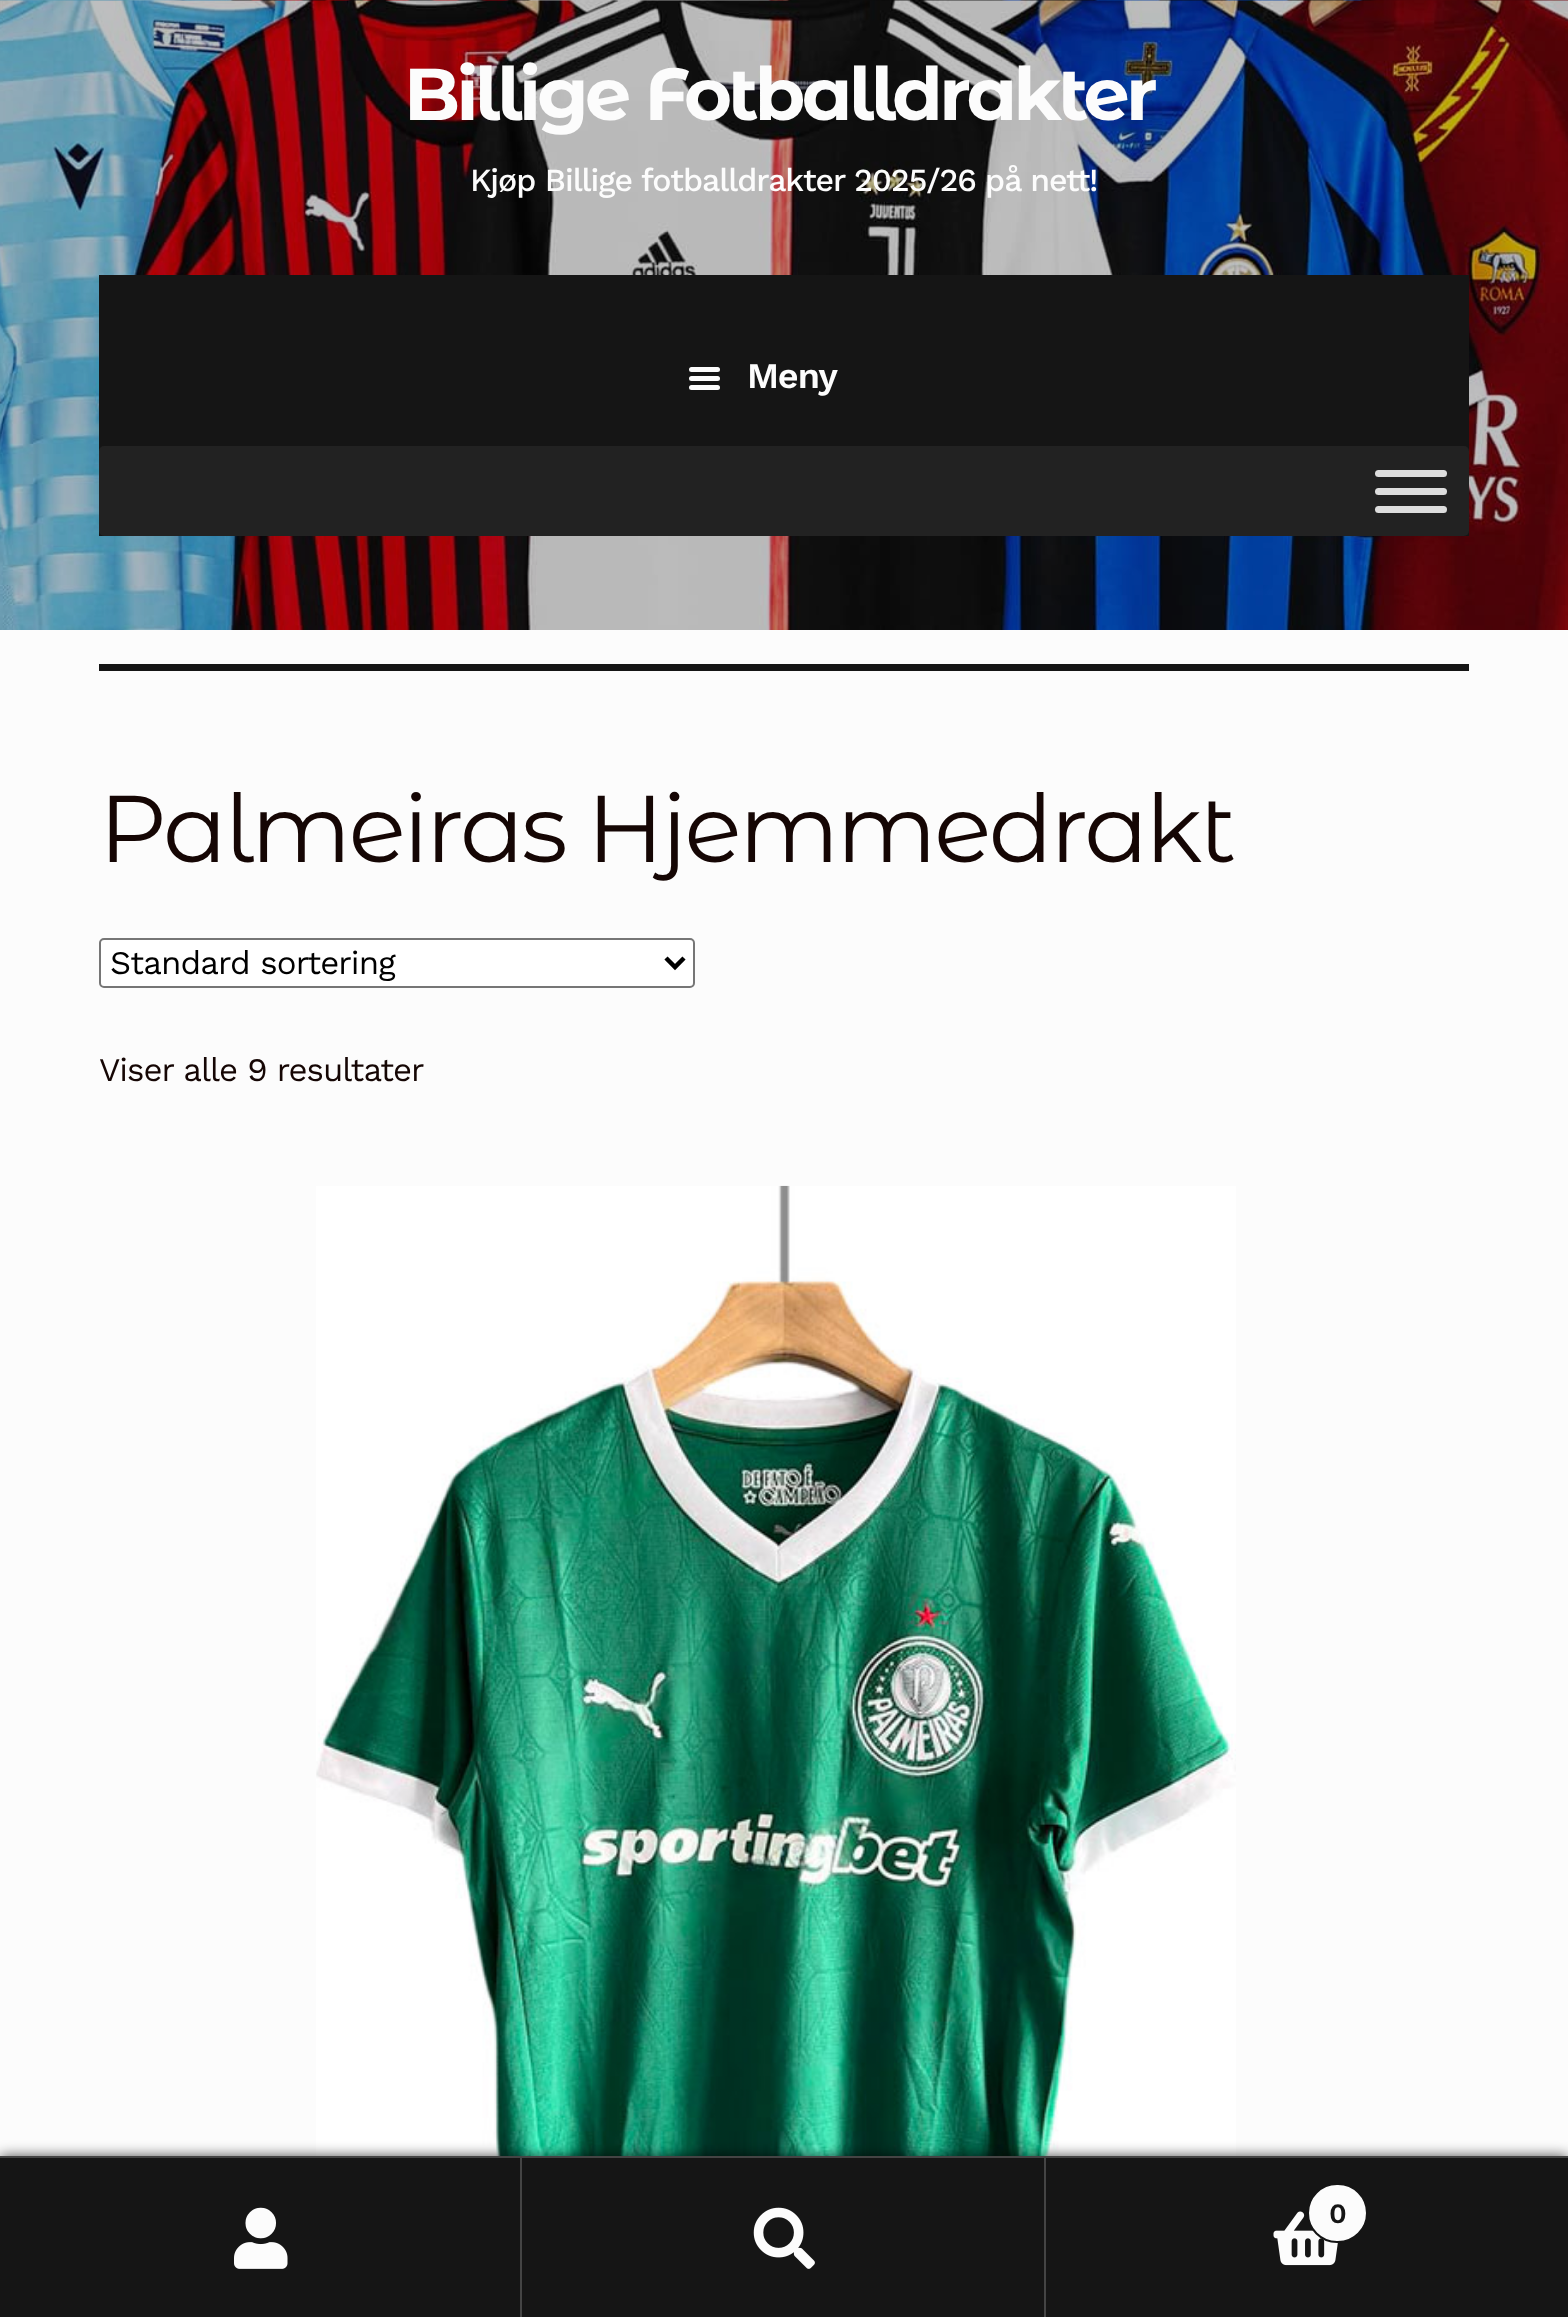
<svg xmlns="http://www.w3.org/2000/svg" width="1568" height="2317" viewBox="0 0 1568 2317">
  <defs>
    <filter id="blur1" x="-50%" y="-200%" width="200%" height="500%"><feGaussianBlur stdDeviation="7"/></filter>
  </defs>
  <rect width="100%" height="100%" fill="#fcfcfc"/>
  <image x="0" y="0" width="1568" height="630" href="img1.png"/>
  <text x="404" y="120" font-family="Montserrat Alternates" font-size="73.4" font-weight="bold" letter-spacing="-3.7" fill="#fcfcfc">Billige Fotballdrakter</text>
  <text x="470" y="191" font-family="Work Sans" font-size="32.1" font-weight="500" letter-spacing="-1.05" fill="#fcfcfc">Kjøp Billige fotballdrakter 2025/26 på nett!</text>
  <rect x="99" y="275" width="1370" height="261" fill="#151515"/>
  <rect x="689" y="367" width="31" height="5" rx="2.5" fill="#fcfcfc"/>
  <rect x="689" y="376" width="31" height="5" rx="2.5" fill="#fcfcfc"/>
  <text x="747" y="388" font-family="Work Sans" font-size="36" font-weight="600" letter-spacing="-1" fill="#fcfcfc">Meny</text>
  <rect x="689" y="385" width="31" height="5" rx="2.5" fill="#fcfcfc"/>
  <rect x="99" y="446" width="1370" height="90" rx="5" fill="#222222"/>
  <rect x="1375" y="470" width="72" height="7" rx="3.5" fill="#dddddd"/>
  <rect x="1375" y="488" width="72" height="7" rx="3.5" fill="#dddddd"/>
  <rect x="1375" y="506" width="72" height="7" rx="3.5" fill="#dddddd"/>
  <rect x="99" y="664" width="1370" height="7" fill="#151515"/>
  <text x="99" y="862" font-family="Montserrat Alternates" font-size="94.5" letter-spacing="-2.65" fill="#150604">Palmeiras Hjemmedrakt</text>
  <rect x="100" y="939" width="594" height="48" rx="4" fill="#ffffff" stroke="#767676" stroke-width="2"/>
  <path d="M666 958L675 967L684 958" fill="none" stroke="#000000" stroke-width="4.5"/>
  <text x="110" y="974" font-family="Work Sans" font-size="33" letter-spacing="-0.9" fill="#000000">Standard sortering</text>
  <text x="99" y="1081" font-family="Work Sans" font-size="33" letter-spacing="-1.05" fill="#150604">Viser alle 9 resultater</text>
  <image x="316" y="1185" width="920" height="971" href="img2.png"/>
  <rect x="0" y="2156" width="1568" height="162" fill="#000000" fill-opacity="0.7" filter="url(#blur1)"/>
  <rect x="0" y="2156" width="1568" height="2" fill="#444444"/>
  <rect x="0" y="2158" width="520" height="159" fill="#151515"/>
  <rect x="520" y="2158" width="2" height="159" fill="#444444"/>
  <image x="234" y="2207" width="54" height="62" href="img3.png"/>
  <rect x="522" y="2158" width="522" height="159" fill="#151515"/>
  <rect x="1044" y="2158" width="2" height="159" fill="#444444"/>
  <image x="753" y="2207" width="62" height="62" href="img4.png"/>
  <rect x="1046" y="2158" width="522" height="159" fill="#151515"/>
  <image x="1273" y="2211" width="65" height="55" href="img5.png"/>
  <rect x="1308" y="2184" width="59" height="58" rx="29" fill="#fcfcfc" stroke="#151515" stroke-width="2"/>
  <text x="1329" y="2223" font-family="Work Sans" font-size="28" font-weight="600" letter-spacing="-1.05" fill="#151515">0</text>
</svg>
